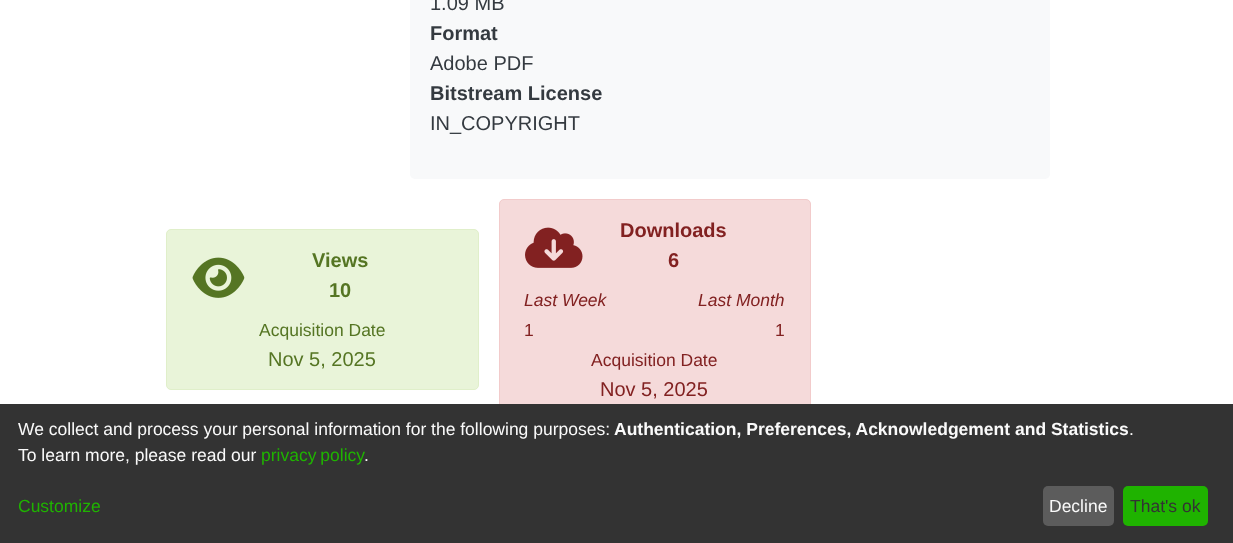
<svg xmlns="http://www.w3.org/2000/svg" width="1233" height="543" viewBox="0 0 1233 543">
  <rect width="100%" height="100%" fill="#ffffff"/>
  <rect x="410" y="-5" width="640" height="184" rx="5" fill="#f8f9fa"/>
  <text x="430" y="10" font-family="Liberation Sans" font-size="20" fill="#343a40">1.09 MB</text>
  <text x="430" y="40" font-family="Liberation Sans" font-size="20" font-weight="bold" fill="#343a40">Format</text>
  <text x="430" y="70" font-family="Liberation Sans" font-size="20" fill="#343a40">Adobe PDF</text>
  <text x="430" y="100" font-family="Liberation Sans" font-size="20" font-weight="bold" fill="#343a40">Bitstream License</text>
  <text x="430" y="130" font-family="Liberation Sans" font-size="20" fill="#343a40">IN_COPYRIGHT</text>
  <rect x="166.5" y="229.5" width="312" height="160" rx="4.5" fill="#e9f4d9" stroke="#e0efca"/>
  <image x="192" y="257" width="53" height="41" href="img1.png"/>
  <text x="312" y="267" font-family="Liberation Sans" font-size="20" font-weight="bold" fill="#557523">Views</text>
  <text x="329" y="297" font-family="Liberation Sans" font-size="20" font-weight="bold" fill="#557523">10</text>
  <text x="259" y="336" font-family="Liberation Sans" font-size="17.5" fill="#557523">Acquisition Date</text>
  <text x="268" y="366" font-family="Liberation Sans" font-size="20" fill="#557523">Nov 5, 2025</text>
  <rect x="499.5" y="199.5" width="311" height="220" rx="4.5" fill="#f5dada" stroke="#f2cbcb"/>
  <image x="525" y="227" width="58" height="41" href="img2.png"/>
  <text x="620" y="237" font-family="Liberation Sans" font-size="20" font-weight="bold" fill="#822121">Downloads</text>
  <text x="668" y="267" font-family="Liberation Sans" font-size="20" font-weight="bold" fill="#822121">6</text>
  <text x="524" y="306" font-family="Liberation Sans" font-size="17.5" font-style="italic" fill="#822121">Last Week</text>
  <text x="524" y="336" font-family="Liberation Sans" font-size="17.5" fill="#822121">1</text>
  <text x="698" y="306" font-family="Liberation Sans" font-size="17.5" font-style="italic" fill="#822121">Last Month</text>
  <text x="775" y="336" font-family="Liberation Sans" font-size="17.5" fill="#822121">1</text>
  <text x="591" y="366" font-family="Liberation Sans" font-size="17.5" fill="#822121">Acquisition Date</text>
  <text x="600" y="396" font-family="Liberation Sans" font-size="20" fill="#822121">Nov 5, 2025</text>
  <rect x="0" y="404" width="1233" height="139" fill="#333333"/>
  <text x="18" y="435" font-family="Liberation Sans" font-size="17.5" fill="#fafafa">We collect and process your personal information for the following purposes:</text>
  <text x="614" y="435" font-family="Liberation Sans" font-size="17.5" font-weight="bold" fill="#fafafa">Authentication, Preferences, Acknowledgement and Statistics</text>
  <text x="1129" y="435" font-family="Liberation Sans" font-size="17.5" fill="#fafafa">.</text>
  <text x="18" y="461" font-family="Liberation Sans" font-size="17.5" fill="#fafafa">To learn more, please read our</text>
  <text x="261" y="461" word-spacing="-1" font-family="Liberation Sans" font-size="17.5" fill="#1fb300">privacy policy</text>
  <text x="364" y="461" font-family="Liberation Sans" font-size="17.5" fill="#fafafa">.</text>
  <text x="18" y="512" font-family="Liberation Sans" font-size="17.5" fill="#1fb300">Customize</text>
  <rect x="1043" y="486" width="71" height="40" rx="5" fill="#5c5c5c"/>
  <text x="1049" y="512" font-family="Liberation Sans" font-size="17.5" fill="#fafafa">Decline</text>
  <rect x="1123" y="486" width="85" height="40" rx="5" fill="#1fb300"/>
  <text x="1130" y="512" font-family="Liberation Sans" font-size="17.5" fill="#333333">That's ok</text>
</svg>
